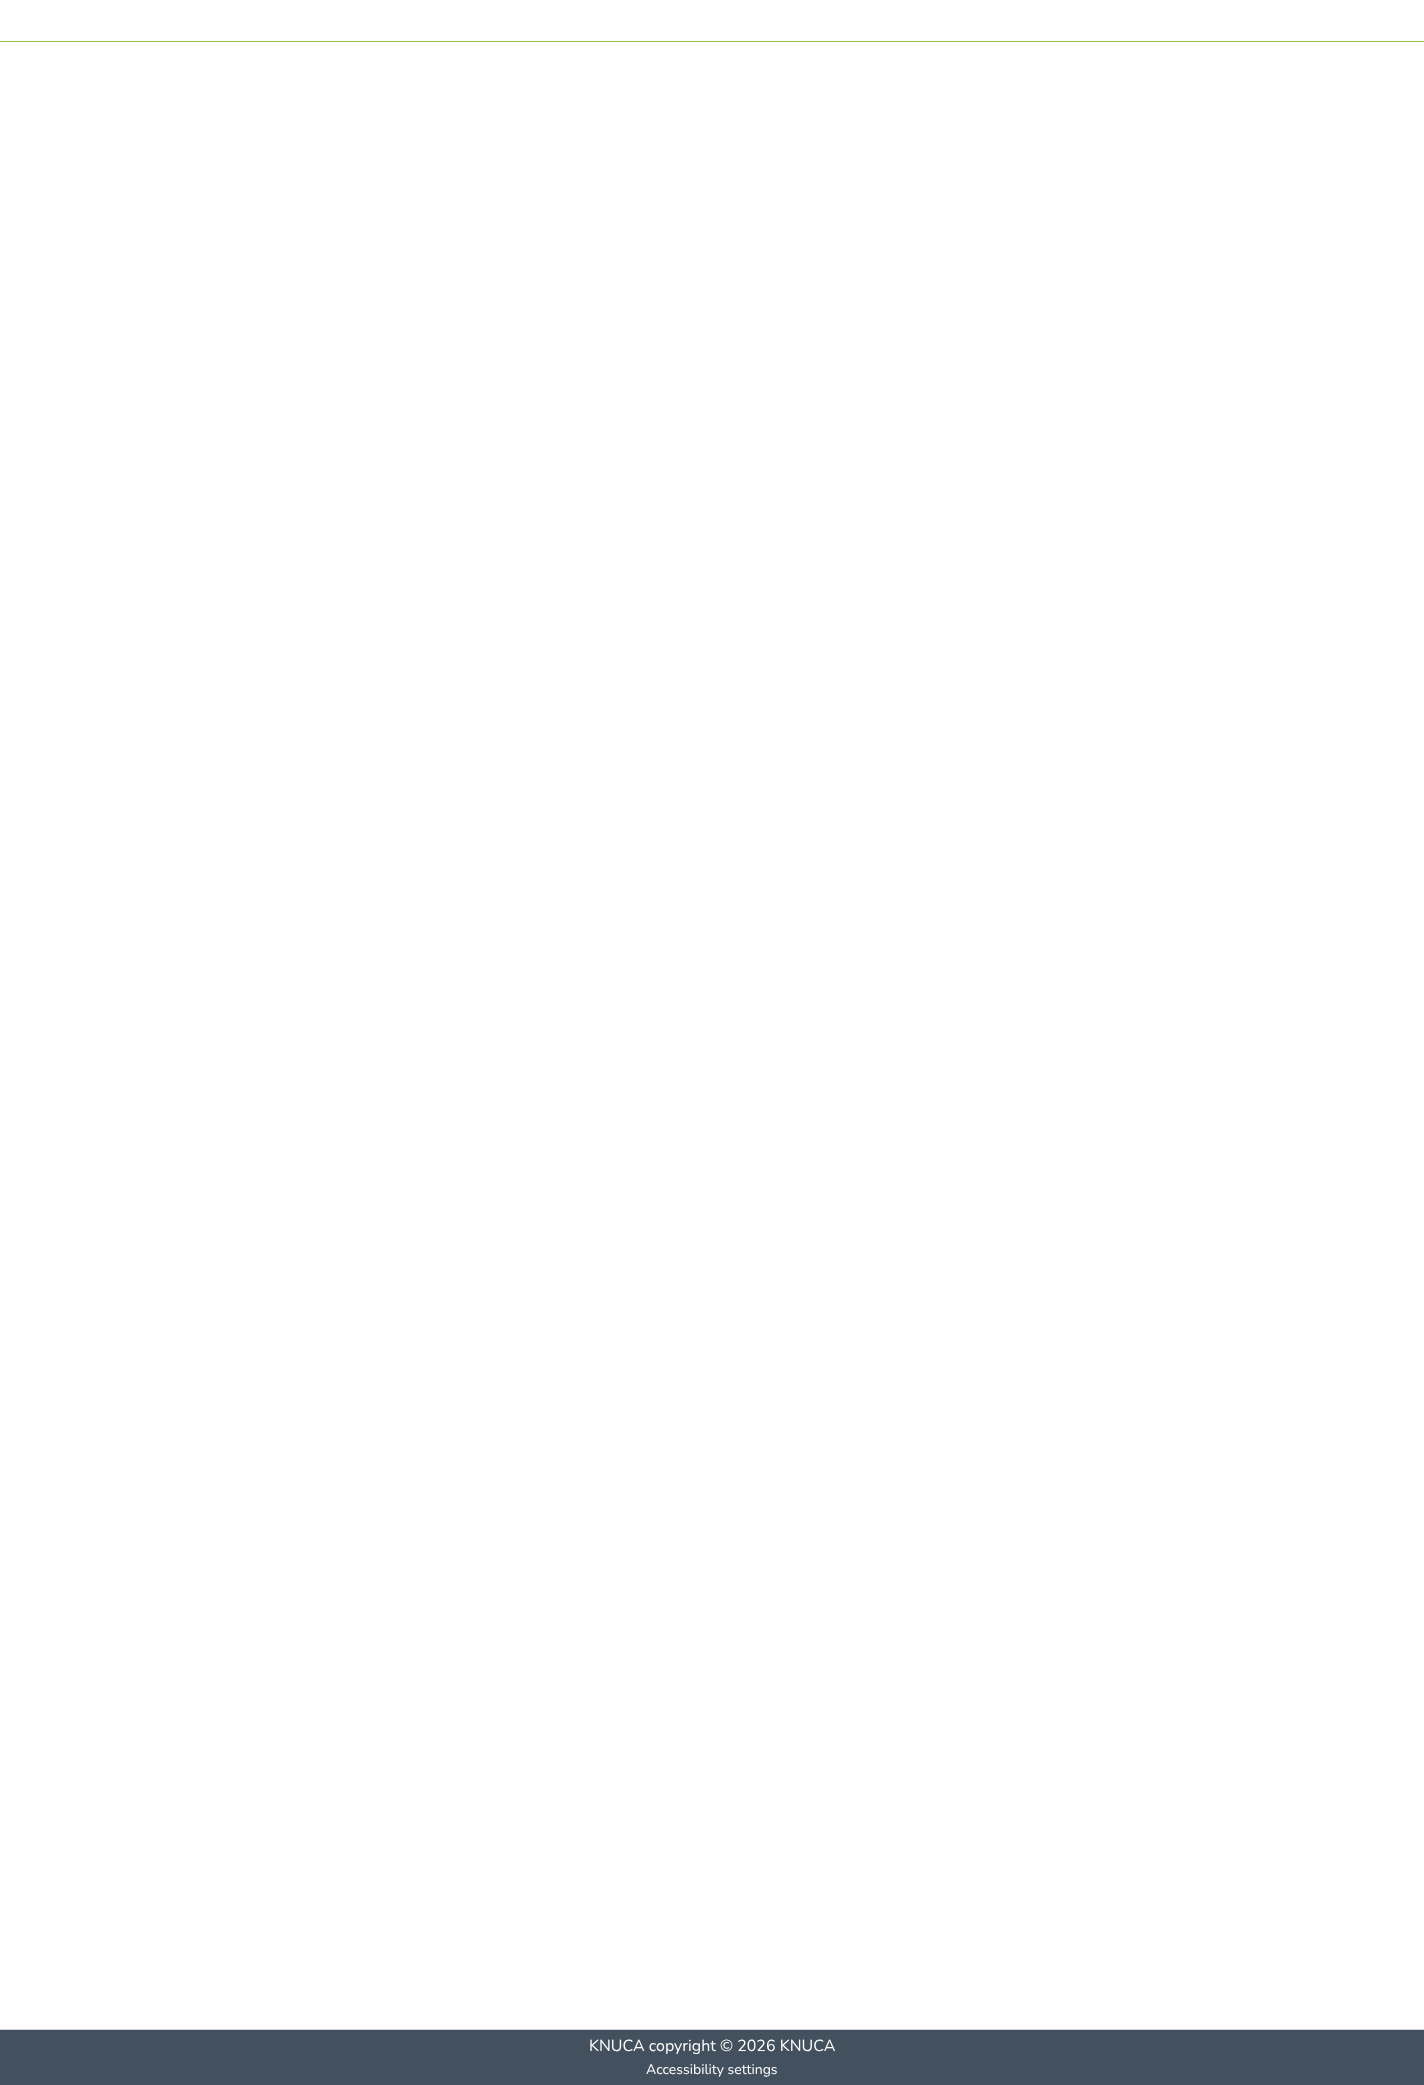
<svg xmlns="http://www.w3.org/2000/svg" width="1424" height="2085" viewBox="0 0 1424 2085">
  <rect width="100%" height="100%" fill="#ffffff"/>
  <rect x="0" y="41" width="1424" height="1" fill="#92c642"/>
  <rect x="0" y="2030" width="1424" height="55" fill="#43515f"/>
  <rect x="0" y="2029" width="1424" height="1" fill="#ced4da"/>
  <text x="589" y="2051" font-family="Nunito" font-size="16" fill="#ffffff">KNUCA copyright © 2026 KNUCA</text>
  <text x="646" y="2074" font-family="Nunito" font-size="14" fill="#ffffff">Accessibility settings</text>
</svg>
